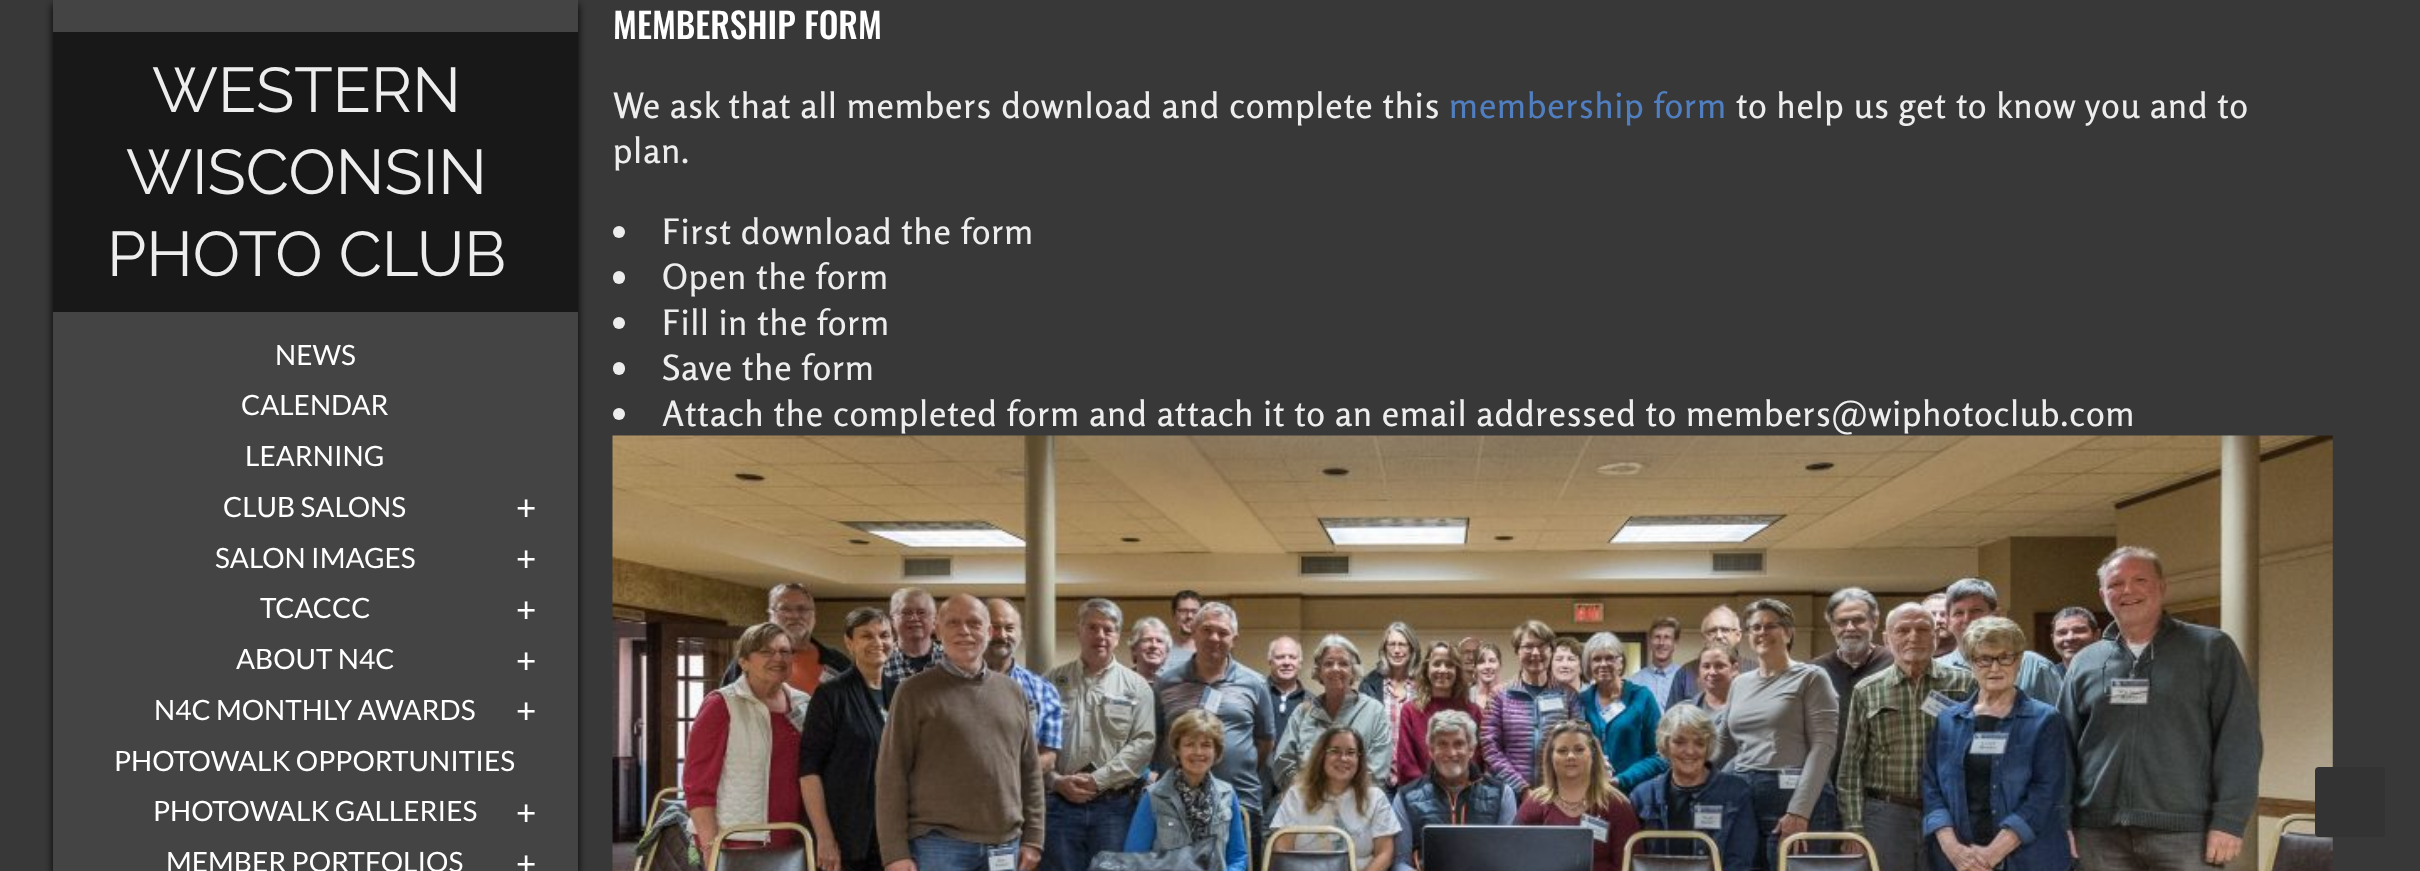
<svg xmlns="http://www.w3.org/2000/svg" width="2420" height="871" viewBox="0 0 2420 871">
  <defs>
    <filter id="blur1" x="-50%" y="-200%" width="200%" height="500%"><feGaussianBlur stdDeviation="4.5"/></filter>
  </defs>
  <rect width="100%" height="100%" fill="#383838"/>
  <rect x="53" y="4" width="525" height="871" fill="#000000" filter="url(#blur1)"/>
  <rect x="53" y="0" width="525" height="871" fill="#444444"/>
  <rect x="53" y="32" width="525" height="280" fill="#181818"/>
  <text x="152" y="112" font-family="Raleway" font-size="63" fill="#ededed">WESTERN</text>
  <text x="126" y="194" font-family="Raleway" font-size="63" fill="#ededed">WISCONSIN</text>
  <text x="107" y="276" font-family="Raleway" font-size="63" fill="#ededed">PHOTO CLUB</text>
  <text x="275" y="365" font-family="Lato" font-size="28" fill="#ffffff">NEWS</text>
  <text x="241" y="415" font-family="Lato" font-size="28" fill="#ffffff">CALENDAR</text>
  <text x="245" y="466" font-family="Lato" font-size="28" fill="#ffffff">LEARNING</text>
  <text x="223" y="517" font-family="Lato" font-size="28" fill="#ffffff">CLUB SALONS</text>
  <text x="516" y="520" font-family="Lato" font-size="35" fill="#ffffff">+</text>
  <text x="215" y="568" font-family="Lato" font-size="28" fill="#ffffff">SALON IMAGES</text>
  <text x="516" y="571" font-family="Lato" font-size="35" fill="#ffffff">+</text>
  <text x="260" y="618" font-family="Lato" font-size="28" fill="#ffffff">TCACCC</text>
  <text x="516" y="622" font-family="Lato" font-size="35" fill="#ffffff">+</text>
  <text x="236" y="669" font-family="Lato" font-size="28" fill="#ffffff">ABOUT N4C</text>
  <text x="516" y="673" font-family="Lato" font-size="35" fill="#ffffff">+</text>
  <text x="154" y="720" font-family="Lato" font-size="28" fill="#ffffff">N4C MONTHLY AWARDS</text>
  <text x="516" y="723" font-family="Lato" font-size="35" fill="#ffffff">+</text>
  <text x="114" y="771" font-family="Lato" font-size="28" fill="#ffffff">PHOTOWALK OPPORTUNITIES</text>
  <text x="153" y="821" font-family="Lato" font-size="28" fill="#ffffff">PHOTOWALK GALLERIES</text>
  <text x="516" y="825" font-family="Lato" font-size="35" fill="#ffffff">+</text>
  <text x="166" y="872" font-family="Lato" font-size="28" fill="#ffffff">MEMBER PORTFOLIOS</text>
  <text x="516" y="876" font-family="Lato" font-size="35" fill="#ffffff">+</text>
  <text x="613" y="39" font-family="Oswald" font-size="35" font-weight="500" fill="#ffffff">MEMBERSHIP FORM</text>
  <text x="613" y="118" font-family="Rosario" font-size="35" font-weight="500" letter-spacing="0.88" fill="#ededed">We ask that all members download and complete this</text>
  <text x="1449" y="118" font-family="Rosario" font-size="35" font-weight="500" letter-spacing="0.88" fill="#507ebf">membership form</text>
  <text x="1736" y="118" font-family="Rosario" font-size="35" font-weight="500" letter-spacing="0.88" fill="#ededed">to help us get to know you and to</text>
  <text x="613" y="163" font-family="Rosario" font-size="35" font-weight="500" letter-spacing="0.88" fill="#ededed">plan.</text>
  <circle cx="619" cy="232" r="6" fill="#ededed"/>
  <text x="662" y="244" font-family="Rosario" font-size="35" font-weight="500" letter-spacing="0.88" fill="#ededed">First download the form</text>
  <rect x="613" y="271" width="12" height="13" rx="6" fill="#ededed"/>
  <text x="662" y="289" font-family="Rosario" font-size="35" font-weight="500" letter-spacing="0.88" fill="#ededed">Open the form</text>
  <circle cx="619" cy="323" r="6" fill="#ededed"/>
  <text x="662" y="335" font-family="Rosario" font-size="35" font-weight="500" letter-spacing="0.88" fill="#ededed">Fill in the form</text>
  <rect x="613" y="362" width="12" height="13" rx="6" fill="#ededed"/>
  <text x="662" y="380" font-family="Rosario" font-size="35" font-weight="500" letter-spacing="0.88" fill="#ededed">Save the form</text>
  <circle cx="619" cy="414" r="6" fill="#ededed"/>
  <text x="662" y="426" font-family="Rosario" font-size="35" font-weight="500" letter-spacing="0.88" fill="#ededed">Attach the completed form and attach it to an email addressed to members@wiphotoclub.com</text>
  <image x="612" y="435" width="1721" height="436" href="img1.png"/>
  <rect x="2315" y="767" width="70" height="70" rx="4" fill="#333333"/>
</svg>
